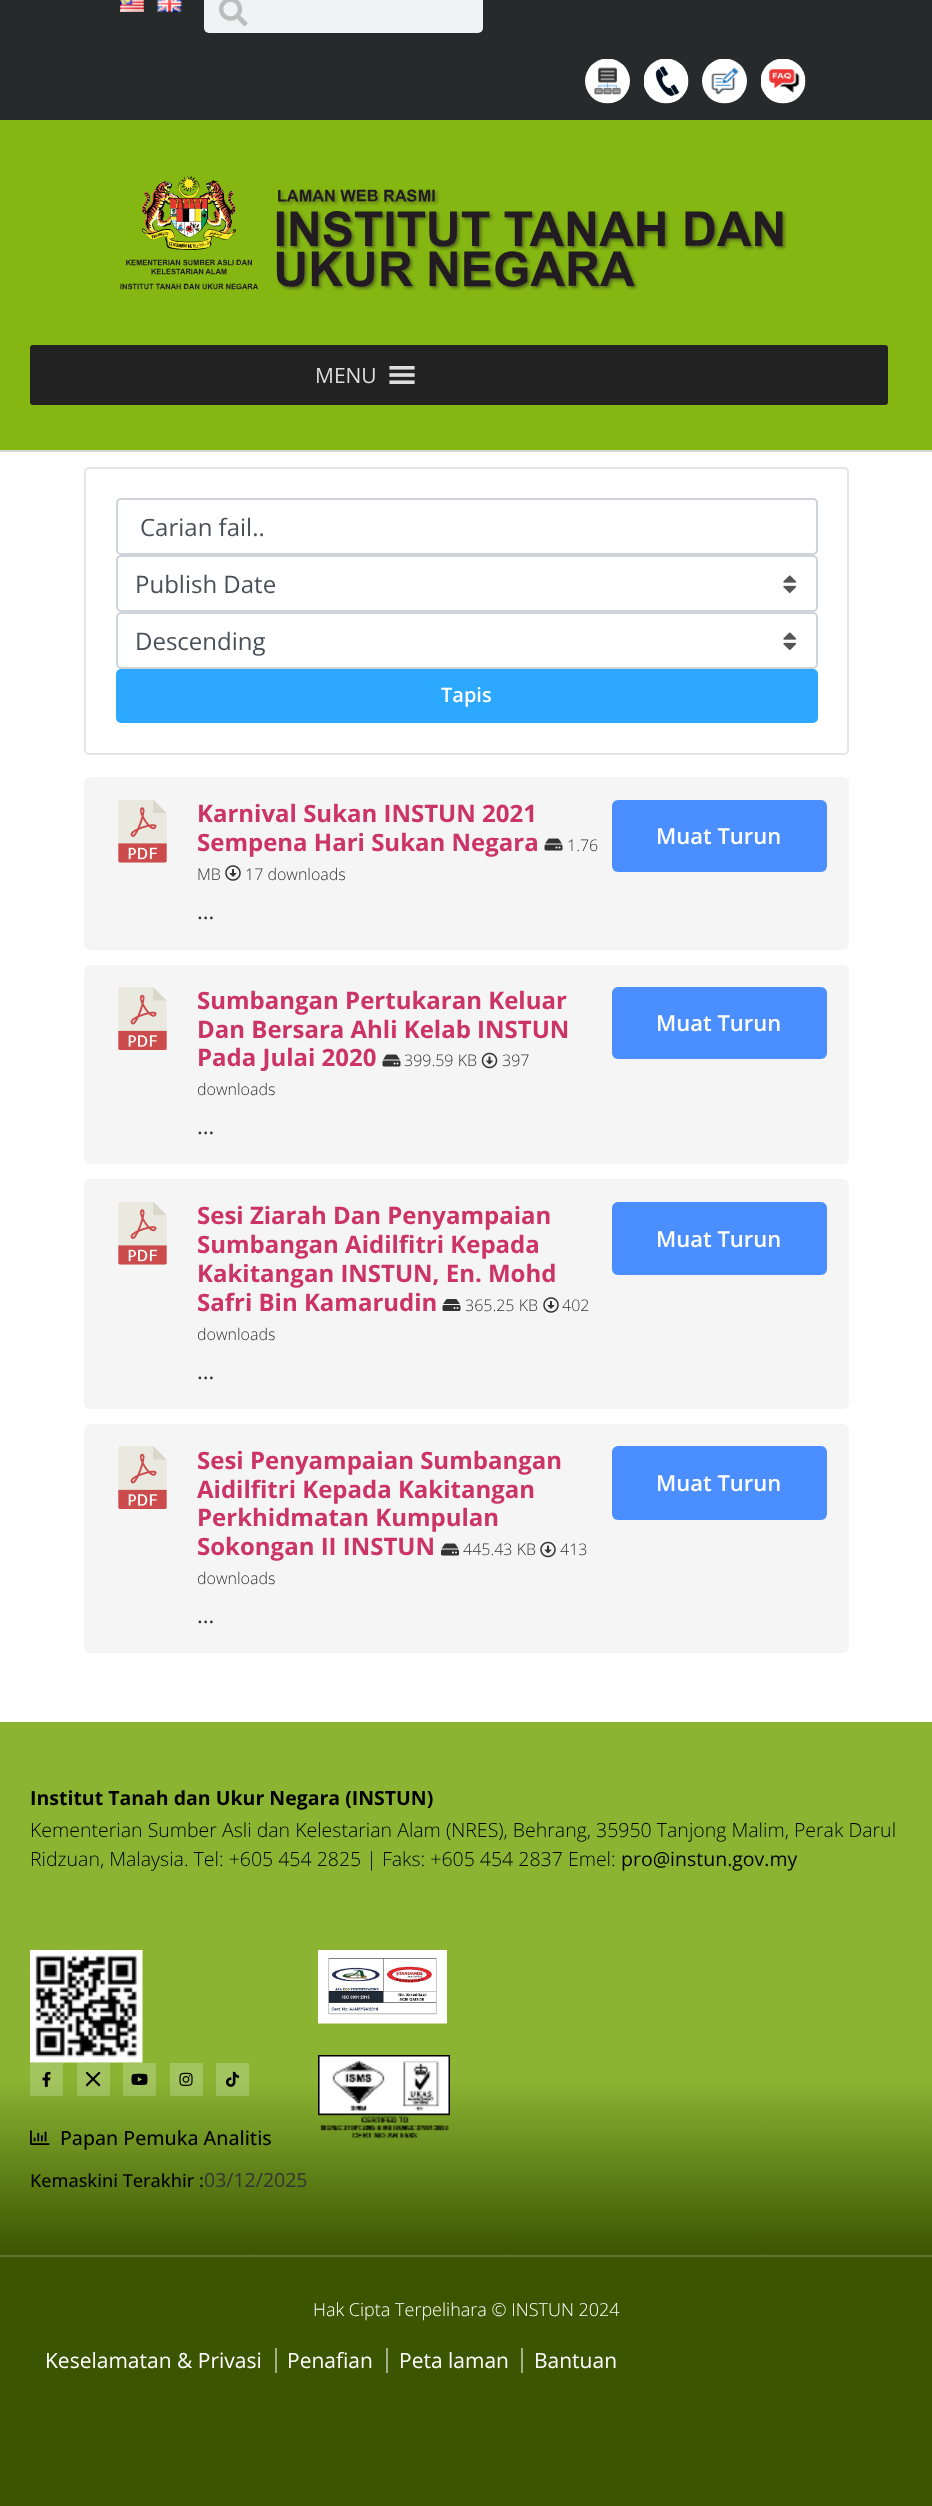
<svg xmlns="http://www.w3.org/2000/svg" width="932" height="2506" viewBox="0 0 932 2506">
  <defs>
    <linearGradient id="g1" gradientUnits="userSpaceOnUse" x1="467" y1="1722" x2="467" y2="2255"><stop offset="0.67" stop-color="#8bb433"/><stop offset="1" stop-color="#3b5500"/></linearGradient>
    <linearGradient id="g2" gradientUnits="userSpaceOnUse" x1="467" y1="1722" x2="467" y2="2255"><stop offset="0.67" stop-color="#a3c45e"/><stop offset="1" stop-color="#647936"/></linearGradient>
    <clipPath id="clip1"><rect x="204" y="2172" width="104" height="15"/></clipPath>
  </defs>
  <rect width="100%" height="100%" fill="#ffffff"/>
  <rect x="0" y="0" width="932" height="120" fill="#262a2b"/>
  <image x="120" y="0" width="24" height="12" href="img1.png"/>
  <image x="157" y="0" width="25" height="12" href="img2.png"/>
  <rect x="204" y="-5" width="279" height="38" rx="5" fill="#f1f2f3"/>
  <image x="219" y="0" width="29" height="26" href="img3.png"/>
  <image x="585" y="59" width="45" height="45" href="img4.png"/>
  <image x="644" y="59" width="45" height="45" href="img5.png"/>
  <image x="702" y="59" width="45" height="45" href="img6.png"/>
  <image x="761" y="59" width="45" height="45" href="img7.png"/>
  <rect x="0" y="120" width="932" height="330" fill="#85b713"/>
  <rect x="0" y="450" width="932" height="2" fill="#d8d8d8"/>
  <image x="120" y="175" width="667" height="116" href="img8.png"/>
  <rect x="30" y="345" width="858" height="60" rx="3" fill="#222222"/>
  <text x="315" y="383" font-family="Open Sans" font-size="21" fill="#dddddd">MENU</text>
  <image x="389" y="366" width="26" height="18" href="img9.png"/>
  <rect x="85" y="468" width="763" height="286" rx="4" fill="none" stroke="#e5e5e5" stroke-width="2"/>
  <rect x="117" y="499" width="700" height="55" rx="4" fill="none" stroke="#ced4da" stroke-width="2"/>
  <text x="140" y="536" font-family="Open Sans" font-size="24" fill="#495057">Carian fail..</text>
  <image x="783" y="575" width="14" height="18" href="img10.png"/>
  <rect x="117" y="556" width="700" height="55" rx="4" fill="none" stroke="#ced4da" stroke-width="2"/>
  <text x="135" y="593" font-family="Open Sans" font-size="24" fill="#495057">Publish Date</text>
  <image x="783" y="632" width="14" height="18" href="img10.png"/>
  <rect x="117" y="613" width="700" height="55" rx="4" fill="none" stroke="#ced4da" stroke-width="2"/>
  <text x="135" y="650" font-family="Open Sans" font-size="24" fill="#495057">Descending</text>
  <rect x="116" y="669" width="702" height="54" rx="5" fill="#2ca8ff"/>
  <text x="441" y="702" font-family="Open Sans" font-size="20" font-weight="600" fill="#ffffff">Tapis</text>
  <rect x="84" y="777" width="765" height="173" rx="6" fill="#f5f5f5"/>
  <image x="118" y="800" width="49" height="63" href="img11.png"/>
  <text x="197" y="822" font-family="Open Sans" font-size="24" font-weight="bold" fill="#cc3366">Karnival Sukan INSTUN 2021</text>
  <text x="197" y="851" font-family="Open Sans" font-size="24" font-weight="bold" fill="#cc3366">Sempena Hari Sukan Negara</text>
  <image x="544" y="838" width="19" height="13" href="img12.png"/>
  <text x="567" y="851" font-family="Open Sans" font-size="16" font-weight="300" fill="#333333">1.76</text>
  <text x="197" y="880" font-family="Open Sans" font-size="16" font-weight="300" fill="#333333">MB</text>
  <image x="225" y="865" width="16" height="16" href="img13.png"/>
  <text x="245" y="880" font-family="Open Sans" font-size="16" font-weight="300" fill="#333333">17 downloads</text>
  <text x="197" y="919" font-family="Open Sans" font-size="22" fill="#333333">...</text>
  <rect x="612" y="800" width="215" height="72" rx="6" fill="#4a8eff"/>
  <text x="656" y="844" font-family="Open Sans" font-size="22" font-weight="600" fill="#ffffff">Muat Turun</text>
  <rect x="84" y="965" width="765" height="199" rx="6" fill="#f5f5f5"/>
  <image x="118" y="987" width="49" height="63" href="img14.png"/>
  <text x="197" y="1009" font-family="Open Sans" font-size="24" font-weight="bold" fill="#cc3366">Sumbangan Pertukaran Keluar</text>
  <text x="197" y="1038" font-family="Open Sans" font-size="24" font-weight="bold" fill="#cc3366">Dan Bersara Ahli Kelab INSTUN</text>
  <text x="197" y="1066" font-family="Open Sans" font-size="24" font-weight="bold" fill="#cc3366">Pada Julai 2020</text>
  <image x="382" y="1054" width="19" height="13" href="img12.png"/>
  <text x="404" y="1066" font-family="Open Sans" font-size="16" font-weight="300" fill="#333333">399.59 KB</text>
  <image x="481" y="1052" width="17" height="17" href="img15.png"/>
  <text x="502" y="1066" font-family="Open Sans" font-size="16" font-weight="300" fill="#333333">397</text>
  <text x="197" y="1095" font-family="Open Sans" font-size="16" font-weight="300" fill="#333333">downloads</text>
  <text x="197" y="1134" font-family="Open Sans" font-size="22" fill="#333333">...</text>
  <rect x="612" y="987" width="215" height="72" rx="6" fill="#4a8eff"/>
  <text x="656" y="1031" font-family="Open Sans" font-size="22" font-weight="600" fill="#ffffff">Muat Turun</text>
  <rect x="84" y="1179" width="765" height="230" rx="6" fill="#f5f5f5"/>
  <image x="118" y="1202" width="49" height="63" href="img11.png"/>
  <text x="197" y="1224" font-family="Open Sans" font-size="24" font-weight="bold" fill="#cc3366">Sesi Ziarah Dan Penyampaian</text>
  <text x="197" y="1253" font-family="Open Sans" font-size="24" font-weight="bold" fill="#cc3366">Sumbangan Aidilfitri Kepada</text>
  <text x="197" y="1282" font-family="Open Sans" font-size="24" font-weight="bold" fill="#cc3366">Kakitangan INSTUN, En. Mohd</text>
  <text x="197" y="1311" font-family="Open Sans" font-size="24" font-weight="bold" fill="#cc3366">Safri Bin Kamarudin</text>
  <image x="442" y="1299" width="19" height="12" href="img16.png"/>
  <text x="465" y="1311" font-family="Open Sans" font-size="16" font-weight="300" fill="#333333">365.25 KB</text>
  <image x="543" y="1297" width="16" height="16" href="img13.png"/>
  <text x="562" y="1311" font-family="Open Sans" font-size="16" font-weight="300" fill="#333333">402</text>
  <text x="197" y="1340" font-family="Open Sans" font-size="16" font-weight="300" fill="#333333">downloads</text>
  <text x="197" y="1379" font-family="Open Sans" font-size="22" fill="#333333">...</text>
  <rect x="612" y="1202" width="215" height="73" rx="6" fill="#4a8eff"/>
  <text x="656" y="1247" font-family="Open Sans" font-size="22" font-weight="600" fill="#ffffff">Muat Turun</text>
  <rect x="84" y="1424" width="765" height="229" rx="6" fill="#f5f5f5"/>
  <image x="118" y="1446" width="49" height="63" href="img14.png"/>
  <text x="197" y="1469" font-family="Open Sans" font-size="24" font-weight="bold" fill="#cc3366">Sesi Penyampaian Sumbangan</text>
  <text x="197" y="1498" font-family="Open Sans" font-size="24" font-weight="bold" fill="#cc3366">Aidilfitri Kepada Kakitangan</text>
  <text x="197" y="1526" font-family="Open Sans" font-size="24" font-weight="bold" fill="#cc3366">Perkhidmatan Kumpulan</text>
  <text x="197" y="1555" font-family="Open Sans" font-size="24" font-weight="bold" fill="#cc3366">Sokongan II INSTUN</text>
  <image x="441" y="1543" width="18" height="13" href="img17.png"/>
  <text x="463" y="1555" font-family="Open Sans" font-size="16" font-weight="300" fill="#333333">445.43 KB</text>
  <image x="540" y="1541" width="16" height="17" href="img18.png"/>
  <text x="560" y="1555" font-family="Open Sans" font-size="16" font-weight="300" fill="#333333">413</text>
  <text x="197" y="1584" font-family="Open Sans" font-size="16" font-weight="300" fill="#333333">downloads</text>
  <text x="197" y="1623" font-family="Open Sans" font-size="22" fill="#333333">...</text>
  <rect x="612" y="1446" width="215" height="74" rx="6" fill="#4a8eff"/>
  <text x="656" y="1491" font-family="Open Sans" font-size="22" font-weight="600" fill="#ffffff">Muat Turun</text>
  <rect x="0" y="1722" width="932" height="533" fill="url(#g1)"/>
  <rect x="216" y="2063" width="33" height="33" fill="url(#g2)"/>
  <rect x="170" y="2063" width="33" height="33" fill="url(#g2)"/>
  <rect x="123" y="2063" width="33" height="33" fill="url(#g2)"/>
  <rect x="77" y="2063" width="33" height="33" fill="url(#g2)"/>
  <rect x="30" y="2063" width="33" height="33" fill="url(#g2)"/>
  <text x="30" y="1805" font-family="Open Sans" font-size="19.5" font-weight="bold" fill="#000000">Institut Tanah dan Ukur Negara (INSTUN)</text>
  <text x="30" y="1837" font-family="Open Sans" font-size="19.5" font-weight="300" fill="#000000">Kementerian Sumber Asli dan Kelestarian Alam (NRES), Behrang, 35950 Tanjong Malim, Perak Darul</text>
  <text x="30" y="1866" font-family="Open Sans" font-size="19.5" font-weight="300" fill="#000000">Ridzuan, Malaysia. Tel: +605 454 2825 | Faks: +605 454 2837 Emel:</text>
  <text x="621" y="1866" font-family="Open Sans" font-size="19.5" fill="#000000">pro@instun.gov.my</text>
  <image x="318" y="1950" width="129" height="74" href="img19.png"/>
  <image x="318" y="2055" width="132" height="84" href="img20.png"/>
  <image x="30" y="1950" width="113" height="113" href="img21.png"/>
  <image x="42" y="2071" width="9" height="16" href="img22.png"/>
  <image x="86" y="2072" width="15" height="15" href="img23.png"/>
  <image x="131" y="2073" width="17" height="12" href="img24.png"/>
  <image x="179" y="2072" width="14" height="14" href="img25.png"/>
  <image x="226" y="2071" width="14" height="16" href="img26.png"/>
  <image x="30" y="2130" width="20" height="15" href="img27.png"/>
  <text x="60" y="2145" font-family="Open Sans" font-size="19.5" font-weight="500" fill="#000000">Papan Pemuka Analitis</text>
  <text x="30" y="2187" font-family="Open Sans" font-size="18" font-weight="500" fill="#000000">Kemaskini Terakhir :</text>
  <g clip-path="url(#clip1)">
    <text x="204" y="2187" font-family="Open Sans" font-size="19.5" fill="#333333">03/12/2025</text>
  </g>
  <rect x="0" y="2257" width="932" height="249" fill="#3b5500"/>
  <rect x="0" y="2255" width="932" height="2" fill="#607530"/>
  <text x="313" y="2316" font-family="Open Sans" font-size="18" font-weight="300" fill="#ffffff">Hak Cipta Terpelihara © INSTUN 2024</text>
  <text x="45" y="2368" font-family="Open Sans" font-size="21" fill="#ffffff">Keselamatan &amp; Privasi</text>
  <rect x="275" y="2348" width="2" height="25" fill="#a3af88"/>
  <text x="287" y="2368" font-family="Open Sans" font-size="21" fill="#ffffff">Penafian</text>
  <rect x="386" y="2348" width="2" height="25" fill="#a3af88"/>
  <text x="399" y="2368" font-family="Open Sans" font-size="21" fill="#ffffff">Peta laman</text>
  <rect x="521" y="2348" width="2" height="25" fill="#a3af88"/>
  <text x="534" y="2368" font-family="Open Sans" font-size="21" fill="#ffffff">Bantuan</text>
</svg>
